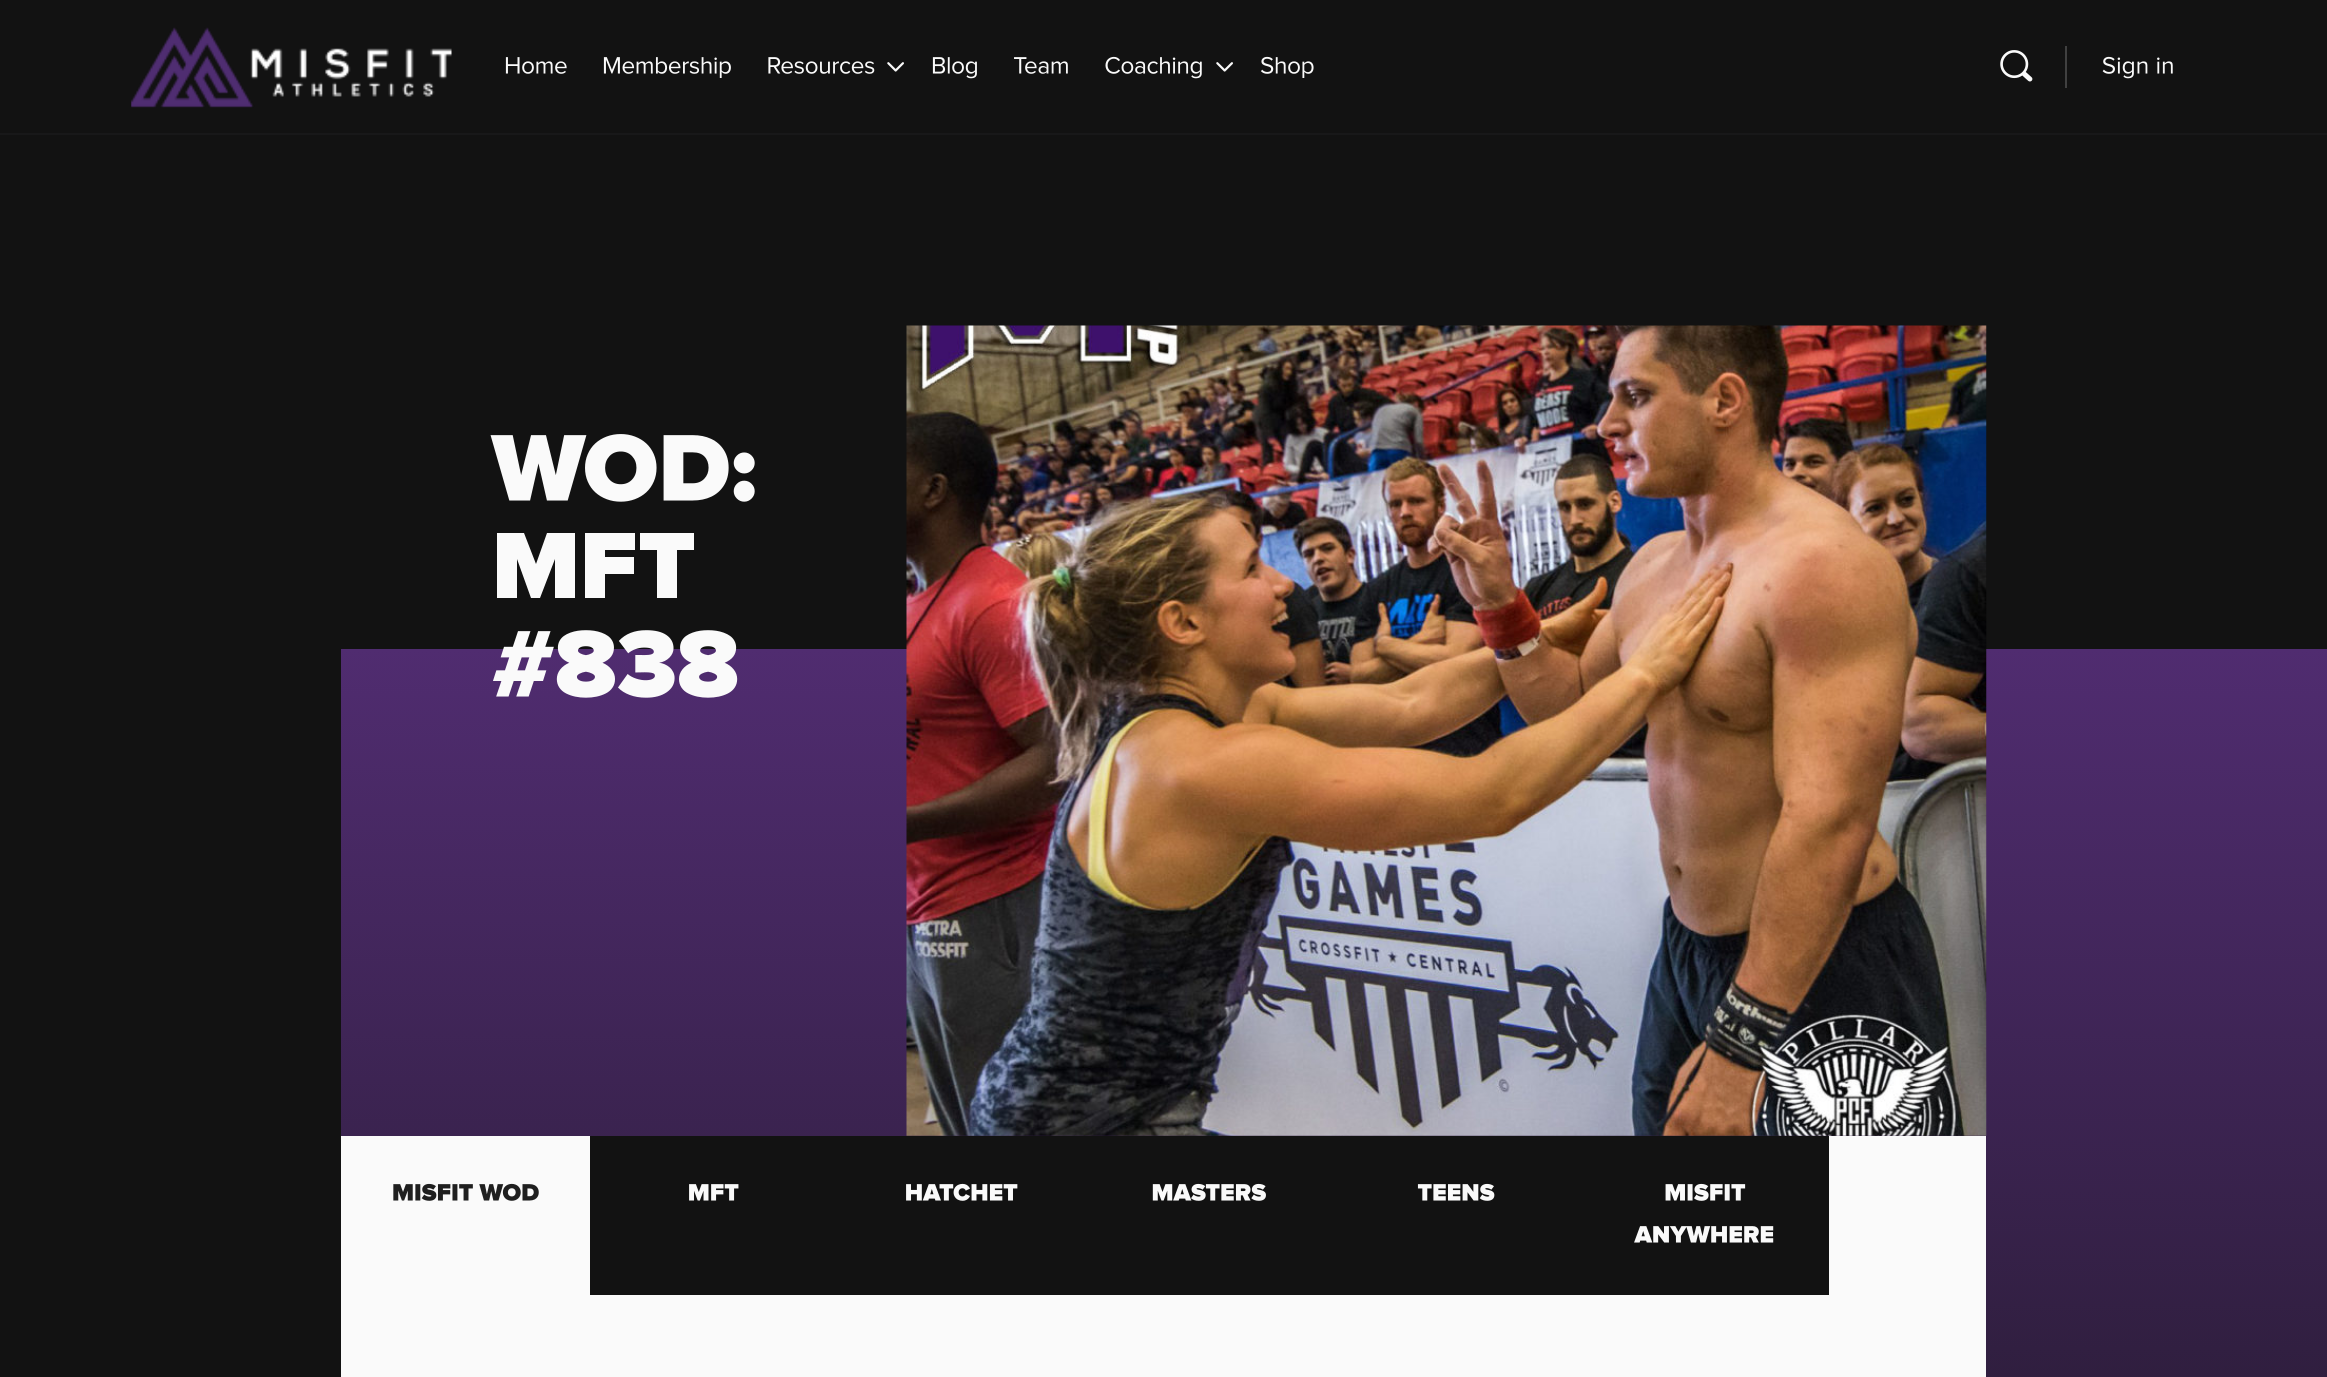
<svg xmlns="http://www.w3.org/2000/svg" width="2327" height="1377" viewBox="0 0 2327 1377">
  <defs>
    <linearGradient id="g1" gradientUnits="userSpaceOnUse" x1="1505" y1="649" x2="1505" y2="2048"><stop offset="0" stop-color="#502c70"/><stop offset="1" stop-color="#121212"/></linearGradient>
  </defs>
  <rect width="100%" height="100%" fill="#121212"/>
  <path d="M0 133V135H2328V2V133Z" fill="#8b8d9d" fill-opacity="0.05"/>
  <image x="131" y="27" width="321" height="81" href="img1.png"/>
  <image x="505" y="57" width="62" height="17" href="img2.png"/>
  <image x="603" y="57" width="128" height="21" href="img3.png"/>
  <image x="768" y="57" width="107" height="17" href="img4.png"/>
  <image x="887" y="62" width="17" height="10" href="img5.png"/>
  <image x="932" y="57" width="45" height="22" href="img6.png"/>
  <image x="1014" y="57" width="54" height="17" href="img7.png"/>
  <image x="1105" y="56" width="97" height="23" href="img8.png"/>
  <image x="1216" y="62" width="17" height="10" href="img5.png"/>
  <image x="1261" y="56" width="53" height="22" href="img9.png"/>
  <image x="2000" y="50" width="33" height="32" href="img10.png"/>
  <rect x="2065" y="46" width="2" height="42" fill="#404040"/>
  <image x="2102" y="56" width="71" height="23" href="img11.png"/>
  <image x="490" y="434" width="265" height="68" href="img12.png"/>
  <path d="M575 598H555V559L540 598H531L517 559V598H497V533H524L536 564L547 533H575ZM605 598H585V533H635V550H605V557H634V574H605ZM677 598H657V550H640V533H694V550H677Z" fill="#fafafa"/>
  <rect x="341" y="649" width="1986" height="728" fill="url(#g1)"/>
  <image x="493" y="630" width="245" height="68" href="img13.png"/>
  <image x="906" y="325" width="1081" height="811" href="img14.png"/>
  <rect x="341" y="1136" width="1645" height="241" fill="#fafafa"/>
  <image x="393" y="1183" width="146" height="18" href="img15.png"/>
  <rect x="590" y="1136" width="1239" height="159" fill="#121212"/>
  <image x="689" y="1184" width="50" height="17" href="img16.png"/>
  <image x="906" y="1183" width="112" height="18" href="img17.png"/>
  <image x="1152" y="1183" width="114" height="18" href="img18.png"/>
  <image x="1417" y="1183" width="78" height="18" href="img19.png"/>
  <image x="1665" y="1183" width="81" height="18" href="img20.png"/>
  <image x="1634" y="1226" width="140" height="17" href="img21.png"/>
</svg>
